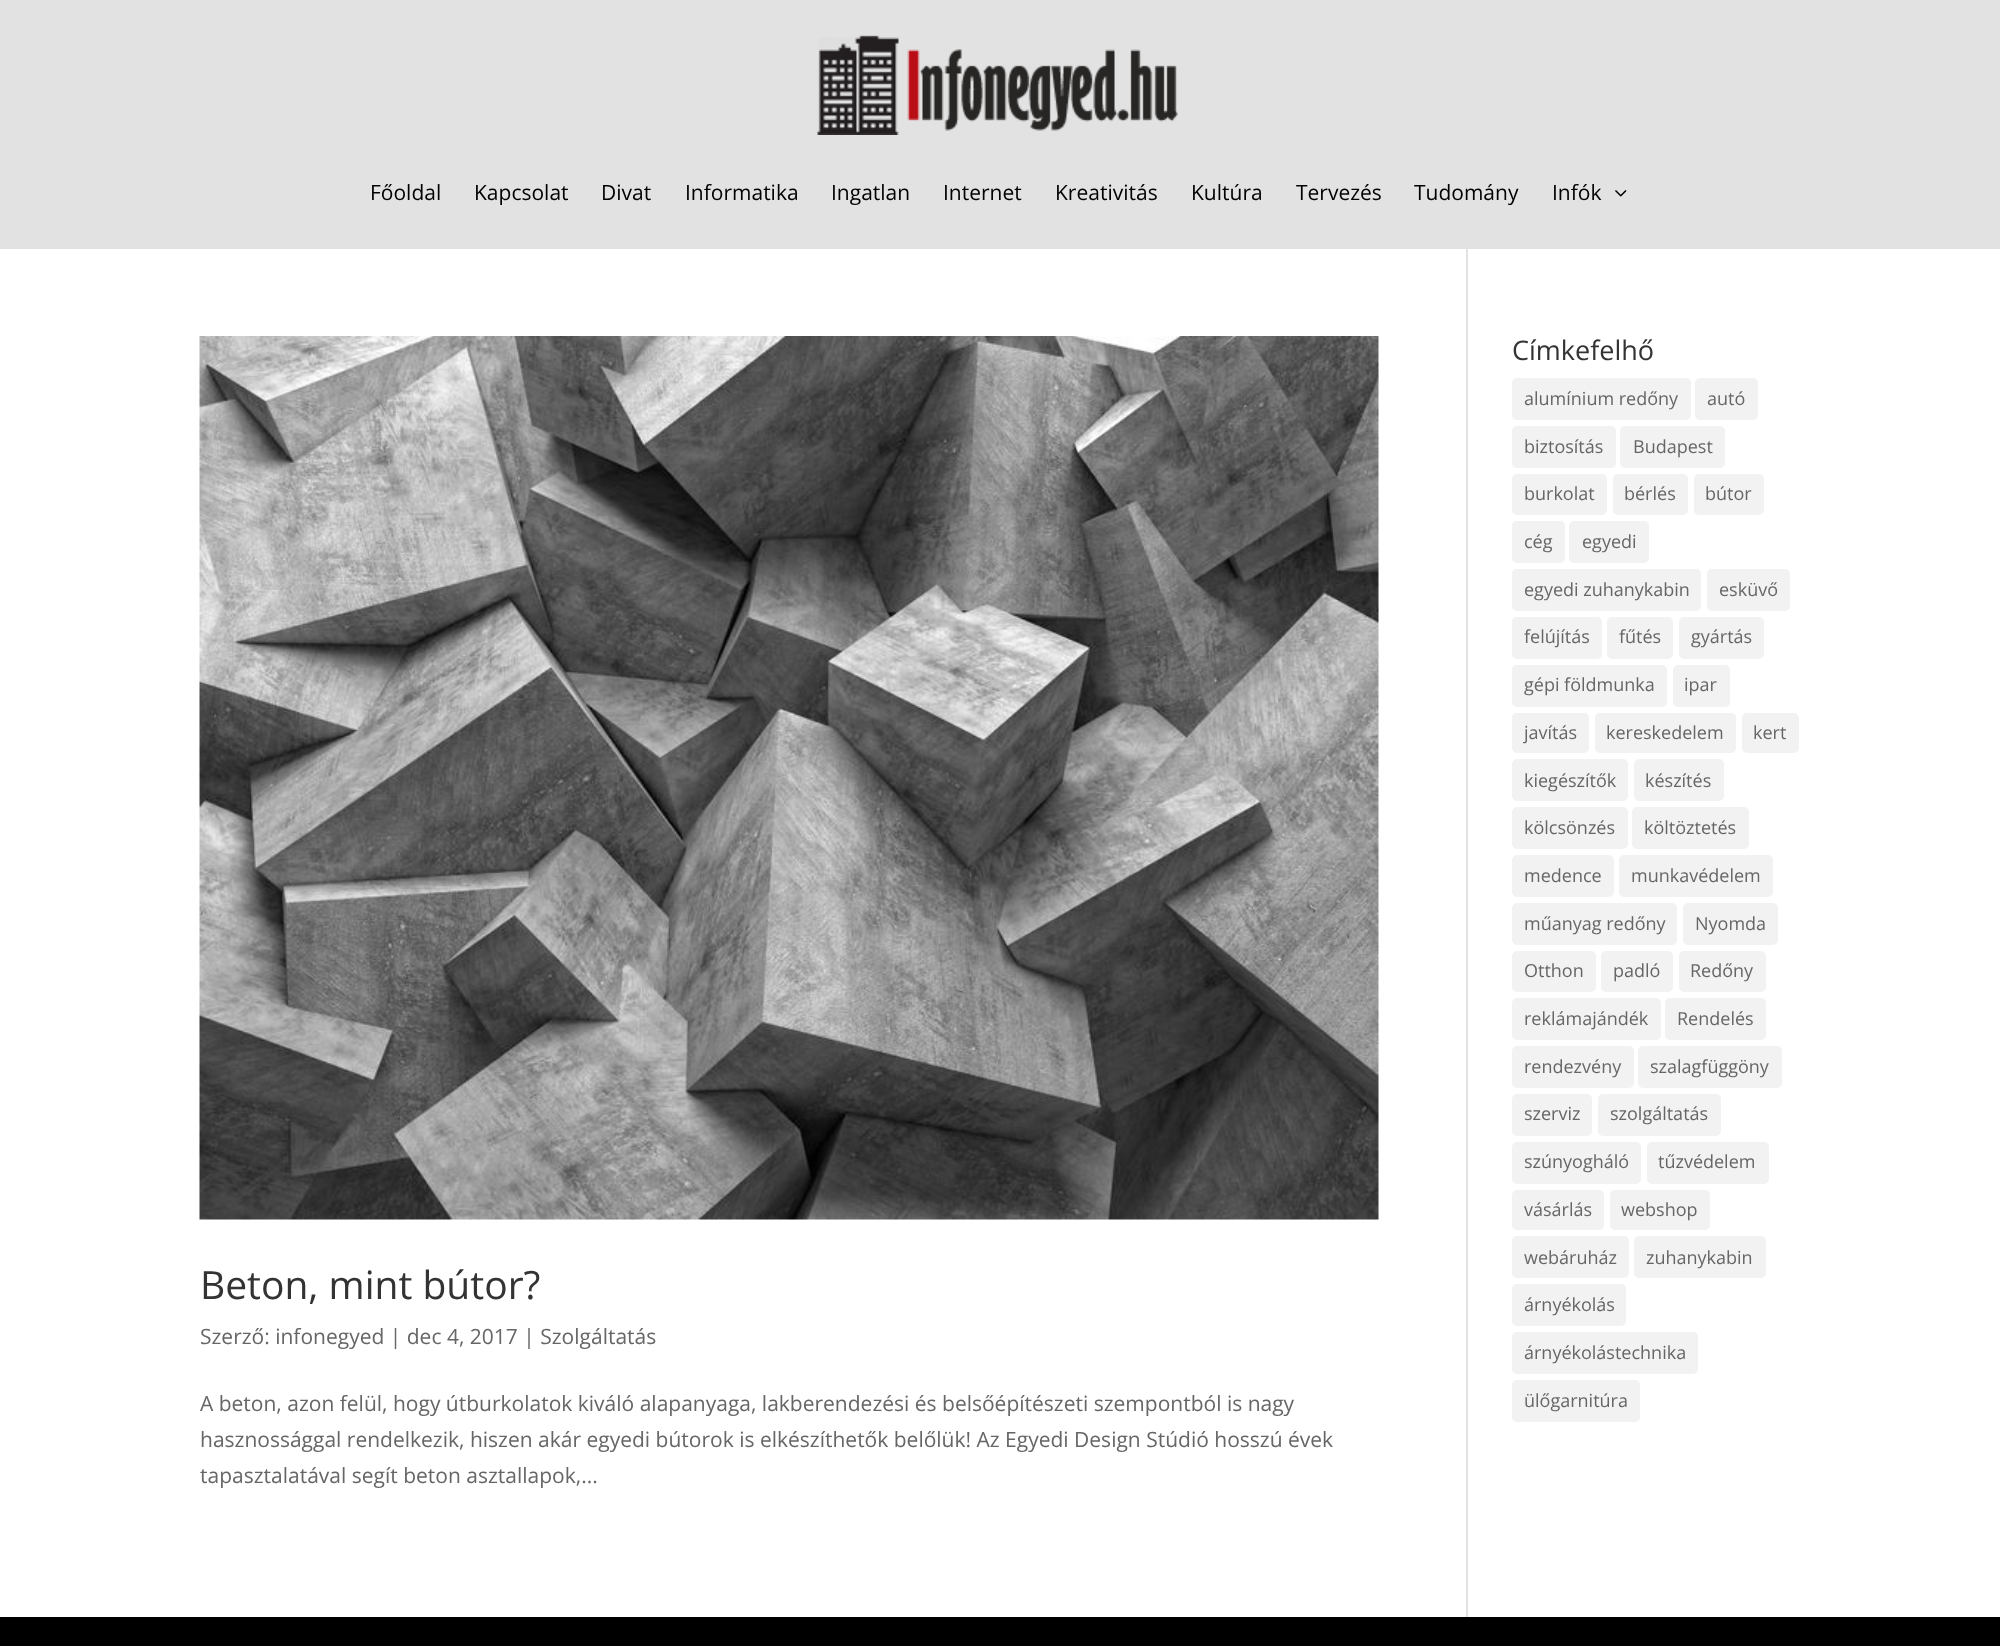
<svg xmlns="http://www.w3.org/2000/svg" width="2000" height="1646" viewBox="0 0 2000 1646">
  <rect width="100%" height="100%" fill="#ffffff"/>
  <rect x="0" y="0" width="2000" height="249" fill="#e2e2e2"/>
  <image x="817" y="35" width="361" height="100" href="img1.png"/>
  <text x="370" y="200" font-family="Open Sans" font-size="21" fill="#000000">Főoldal</text>
  <text x="474" y="200" font-family="Open Sans" font-size="21" fill="#000000">Kapcsolat</text>
  <text x="601" y="200" font-family="Open Sans" font-size="21" fill="#000000">Divat</text>
  <text x="685" y="200" font-family="Open Sans" font-size="21" fill="#000000">Informatika</text>
  <text x="831" y="200" font-family="Open Sans" font-size="21" fill="#000000">Ingatlan</text>
  <text x="943" y="200" font-family="Open Sans" font-size="21" fill="#000000">Internet</text>
  <text x="1055" y="200" font-family="Open Sans" font-size="21" fill="#000000">Kreativitás</text>
  <text x="1191" y="200" font-family="Open Sans" font-size="21" fill="#000000">Kultúra</text>
  <text x="1296" y="200" font-family="Open Sans" font-size="21" fill="#000000">Tervezés</text>
  <text x="1414" y="200" font-family="Open Sans" font-size="21" fill="#000000">Tudomány</text>
  <text x="1552" y="200" font-family="Open Sans" font-size="21" fill="#000000">Infók</text>
  <image x="1615" y="190" width="12" height="7" href="img2.png"/>
  <rect x="1466" y="249" width="2" height="1368" fill="#e2e2e2"/>
  <image x="199" y="336" width="1180" height="884" href="img3.png"/>
  <text x="200" y="1299" font-family="Open Sans" font-size="39" fill="#333333">Beton, mint bútor?</text>
  <text x="200" y="1344" font-family="Open Sans" font-size="21" fill="#666666">Szerző: infonegyed | dec 4, 2017 | Szolgáltatás</text>
  <text x="200" y="1411" font-family="Open Sans" font-size="21" fill="#666666">A beton, azon felül, hogy útburkolatok kiváló alapanyaga, lakberendezési és belsőépítészeti szempontból is nagy</text>
  <text x="200" y="1447" font-family="Open Sans" font-size="21" fill="#666666">hasznossággal rendelkezik, hiszen akár egyedi bútorok is elkészíthetők belőlük! Az Egyedi Design Stúdió hosszú évek</text>
  <text x="200" y="1483" font-family="Open Sans" font-size="21" fill="#666666">tapasztalatával segít beton asztallapok,...</text>
  <text x="1512" y="360" font-family="Open Sans" font-size="27" fill="#333333">Címkefelhő</text>
  <rect x="1512" y="378" width="179" height="42" rx="5" fill="#f2f2f2"/>
  <text x="1524" y="405" font-family="Open Sans" font-size="18" fill="#666666">alumínium redőny</text>
  <rect x="1695" y="378" width="63" height="42" rx="5" fill="#f2f2f2"/>
  <text x="1707" y="405" font-family="Open Sans" font-size="18" fill="#666666">autó</text>
  <rect x="1512" y="426" width="104" height="42" rx="5" fill="#f2f2f2"/>
  <text x="1524" y="453" font-family="Open Sans" font-size="18" fill="#666666">biztosítás</text>
  <rect x="1620" y="426" width="105" height="42" rx="5" fill="#f2f2f2"/>
  <text x="1633" y="453" font-family="Open Sans" font-size="18" fill="#666666">Budapest</text>
  <rect x="1512" y="474" width="95" height="41" rx="5" fill="#f2f2f2"/>
  <text x="1524" y="500" font-family="Open Sans" font-size="18" fill="#666666">burkolat</text>
  <rect x="1613" y="474" width="75" height="41" rx="5" fill="#f2f2f2"/>
  <text x="1624" y="500" font-family="Open Sans" font-size="18" fill="#666666">bérlés</text>
  <rect x="1694" y="474" width="70" height="41" rx="5" fill="#f2f2f2"/>
  <text x="1705" y="500" font-family="Open Sans" font-size="18" fill="#666666">bútor</text>
  <rect x="1512" y="521" width="53" height="42" rx="5" fill="#f2f2f2"/>
  <text x="1524" y="548" font-family="Open Sans" font-size="18" fill="#666666">cég</text>
  <rect x="1569" y="521" width="80" height="42" rx="5" fill="#f2f2f2"/>
  <text x="1582" y="548" font-family="Open Sans" font-size="18" fill="#666666">egyedi</text>
  <rect x="1512" y="569" width="189" height="42" rx="5" fill="#f2f2f2"/>
  <text x="1524" y="596" font-family="Open Sans" font-size="18" fill="#666666">egyedi zuhanykabin</text>
  <rect x="1707" y="569" width="83" height="42" rx="5" fill="#f2f2f2"/>
  <text x="1719" y="596" font-family="Open Sans" font-size="18" fill="#666666">esküvő</text>
  <rect x="1512" y="617" width="90" height="42" rx="5" fill="#f2f2f2"/>
  <text x="1524" y="643" font-family="Open Sans" font-size="18" fill="#666666">felújítás</text>
  <rect x="1607" y="617" width="66" height="42" rx="5" fill="#f2f2f2"/>
  <text x="1619" y="643" font-family="Open Sans" font-size="18" fill="#666666">fűtés</text>
  <rect x="1679" y="617" width="85" height="42" rx="5" fill="#f2f2f2"/>
  <text x="1691" y="643" font-family="Open Sans" font-size="18" fill="#666666">gyártás</text>
  <rect x="1512" y="665" width="155" height="42" rx="5" fill="#f2f2f2"/>
  <text x="1524" y="691" font-family="Open Sans" font-size="18" fill="#666666">gépi földmunka</text>
  <rect x="1673" y="665" width="57" height="42" rx="5" fill="#f2f2f2"/>
  <text x="1684" y="691" font-family="Open Sans" font-size="18" fill="#666666">ipar</text>
  <rect x="1512" y="713" width="77" height="40" rx="5" fill="#f2f2f2"/>
  <text x="1524" y="739" font-family="Open Sans" font-size="18" fill="#666666">javítás</text>
  <rect x="1595" y="713" width="141" height="40" rx="5" fill="#f2f2f2"/>
  <text x="1606" y="739" font-family="Open Sans" font-size="18" fill="#666666">kereskedelem</text>
  <rect x="1742" y="713" width="57" height="40" rx="5" fill="#f2f2f2"/>
  <text x="1753" y="739" font-family="Open Sans" font-size="18" fill="#666666">kert</text>
  <rect x="1512" y="759" width="116" height="42" rx="5" fill="#f2f2f2"/>
  <text x="1524" y="787" font-family="Open Sans" font-size="18" fill="#666666">kiegészítők</text>
  <rect x="1634" y="759" width="90" height="42" rx="5" fill="#f2f2f2"/>
  <text x="1645" y="787" font-family="Open Sans" font-size="18" fill="#666666">készítés</text>
  <rect x="1512" y="807" width="116" height="42" rx="5" fill="#f2f2f2"/>
  <text x="1524" y="834" font-family="Open Sans" font-size="18" fill="#666666">kölcsönzés</text>
  <rect x="1632" y="807" width="117" height="42" rx="5" fill="#f2f2f2"/>
  <text x="1644" y="834" font-family="Open Sans" font-size="18" fill="#666666">költöztetés</text>
  <rect x="1512" y="855" width="102" height="42" rx="5" fill="#f2f2f2"/>
  <text x="1524" y="882" font-family="Open Sans" font-size="18" fill="#666666">medence</text>
  <rect x="1619" y="855" width="154" height="42" rx="5" fill="#f2f2f2"/>
  <text x="1631" y="882" font-family="Open Sans" font-size="18" fill="#666666">munkavédelem</text>
  <rect x="1512" y="903" width="165" height="42" rx="5" fill="#f2f2f2"/>
  <text x="1524" y="930" font-family="Open Sans" font-size="18" fill="#666666">műanyag redőny</text>
  <rect x="1683" y="903" width="95" height="42" rx="5" fill="#f2f2f2"/>
  <text x="1695" y="930" font-family="Open Sans" font-size="18" fill="#666666">Nyomda</text>
  <rect x="1512" y="951" width="84" height="41" rx="5" fill="#f2f2f2"/>
  <text x="1524" y="977" font-family="Open Sans" font-size="18" fill="#666666">Otthon</text>
  <rect x="1601" y="951" width="72" height="41" rx="5" fill="#f2f2f2"/>
  <text x="1613" y="977" font-family="Open Sans" font-size="18" fill="#666666">padló</text>
  <rect x="1679" y="951" width="87" height="41" rx="5" fill="#f2f2f2"/>
  <text x="1690" y="977" font-family="Open Sans" font-size="18" fill="#666666">Redőny</text>
  <rect x="1512" y="998" width="149" height="42" rx="5" fill="#f2f2f2"/>
  <text x="1524" y="1025" font-family="Open Sans" font-size="18" fill="#666666">reklámajándék</text>
  <rect x="1665" y="998" width="101" height="42" rx="5" fill="#f2f2f2"/>
  <text x="1677" y="1025" font-family="Open Sans" font-size="18" fill="#666666">Rendelés</text>
  <rect x="1512" y="1046" width="122" height="42" rx="5" fill="#f2f2f2"/>
  <text x="1524" y="1073" font-family="Open Sans" font-size="18" fill="#666666">rendezvény</text>
  <rect x="1638" y="1046" width="144" height="42" rx="5" fill="#f2f2f2"/>
  <text x="1650" y="1073" font-family="Open Sans" font-size="18" fill="#666666">szalagfüggöny</text>
  <rect x="1512" y="1094" width="80" height="42" rx="5" fill="#f2f2f2"/>
  <text x="1524" y="1120" font-family="Open Sans" font-size="18" fill="#666666">szerviz</text>
  <rect x="1598" y="1094" width="123" height="42" rx="5" fill="#f2f2f2"/>
  <text x="1610" y="1120" font-family="Open Sans" font-size="18" fill="#666666">szolgáltatás</text>
  <rect x="1512" y="1142" width="129" height="42" rx="5" fill="#f2f2f2"/>
  <text x="1524" y="1168" font-family="Open Sans" font-size="18" fill="#666666">szúnyogháló</text>
  <rect x="1647" y="1142" width="122" height="42" rx="5" fill="#f2f2f2"/>
  <text x="1658" y="1168" font-family="Open Sans" font-size="18" fill="#666666">tűzvédelem</text>
  <rect x="1512" y="1190" width="92" height="40" rx="5" fill="#f2f2f2"/>
  <text x="1524" y="1216" font-family="Open Sans" font-size="18" fill="#666666">vásárlás</text>
  <rect x="1610" y="1190" width="100" height="40" rx="5" fill="#f2f2f2"/>
  <text x="1621" y="1216" font-family="Open Sans" font-size="18" fill="#666666">webshop</text>
  <rect x="1512" y="1236" width="117" height="42" rx="5" fill="#f2f2f2"/>
  <text x="1524" y="1264" font-family="Open Sans" font-size="18" fill="#666666">webáruház</text>
  <rect x="1634" y="1236" width="132" height="42" rx="5" fill="#f2f2f2"/>
  <text x="1646" y="1264" font-family="Open Sans" font-size="18" fill="#666666">zuhanykabin</text>
  <rect x="1512" y="1284" width="114" height="42" rx="5" fill="#f2f2f2"/>
  <text x="1524" y="1311" font-family="Open Sans" font-size="18" fill="#666666">árnyékolás</text>
  <rect x="1512" y="1332" width="186" height="42" rx="5" fill="#f2f2f2"/>
  <text x="1524" y="1359" font-family="Open Sans" font-size="18" fill="#666666">árnyékolástechnika</text>
  <rect x="1512" y="1380" width="128" height="42" rx="5" fill="#f2f2f2"/>
  <text x="1524" y="1407" font-family="Open Sans" font-size="18" fill="#666666">ülőgarnitúra</text>
  <rect x="0" y="1617" width="2000" height="29" fill="#000000"/>
</svg>
